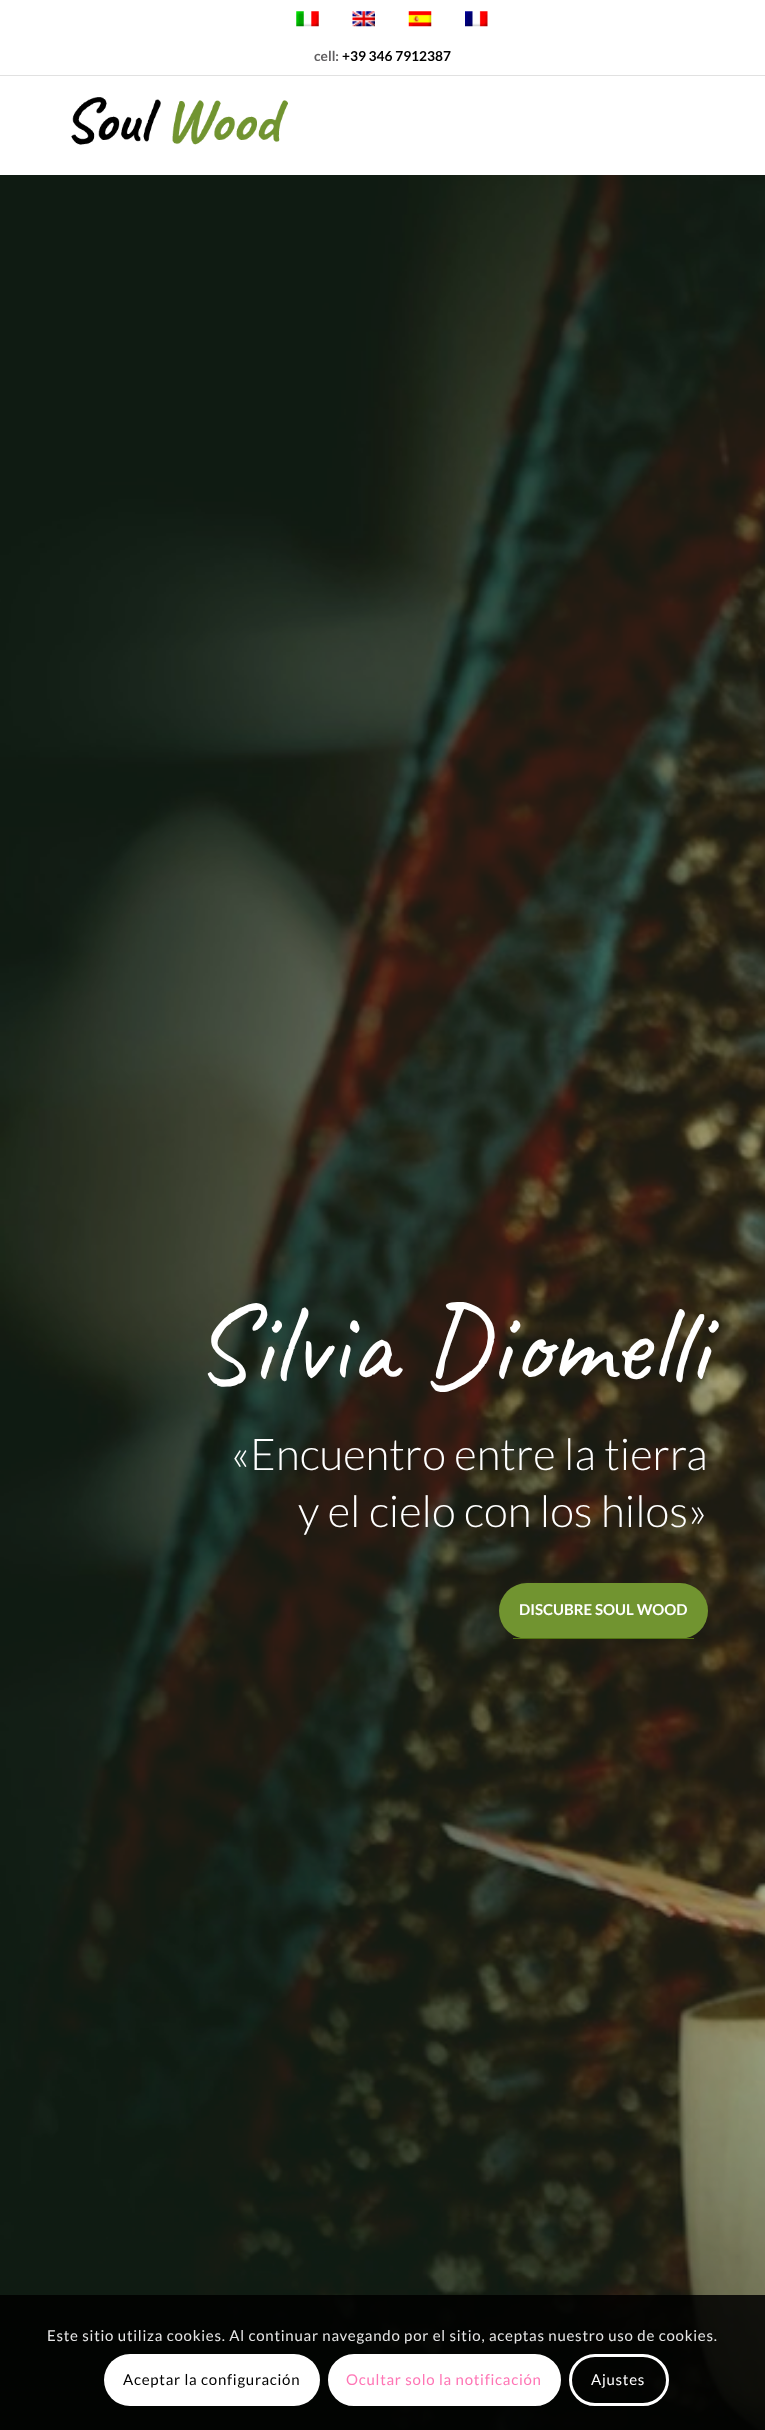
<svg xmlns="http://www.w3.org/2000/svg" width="765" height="2430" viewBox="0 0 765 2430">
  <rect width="100%" height="100%" fill="#ffffff"/>
  <rect x="0" y="75" width="765" height="1" fill="#e1e1e1"/>
  <image x="296" y="11" width="23" height="16" href="img1.png"/>
  <image x="352" y="11" width="23" height="16" href="img2.png"/>
  <image x="408" y="11" width="24" height="16" href="img3.png"/>
  <image x="465" y="11" width="23" height="16" href="img4.png"/>
  <text x="314" y="61" font-family="Lato" font-size="13.75" font-weight="bold" fill="#615f61">cell:</text>
  <text x="342" y="61" font-family="Lato" font-size="13.75" font-weight="bold" fill="#000000">+39 346 7912387</text>
  <image x="71" y="97" width="217" height="48" href="img5.png"/>
  <image x="0" y="175" width="765" height="2255" href="img6.png"/>
  <text x="193" y="1381" font-family="Caveat" font-size="112.5" fill="#ffffff">Silvia Diomelli</text>
  <text x="231" y="1470" font-family="Lato" font-size="43.75" font-weight="300" fill="#ffffff">«Encuentro entre la tierra</text>
  <text x="298" y="1527" font-family="Lato" font-size="43.75" font-weight="300" fill="#ffffff">y el cielo con los hilos»</text>
  <rect x="499" y="1583" width="209" height="56" rx="28" fill="#719430"/>
  <rect x="513" y="1638" width="181" height="1" fill="#507210"/>
  <text x="519" y="1615" font-family="Lato" font-size="15" font-weight="bold" fill="#ffffff">DISCUBRE SOUL WOOD</text>
  <rect x="0" y="2295" width="765" height="135" fill="#000000" fill-opacity="0.85"/>
  <text x="47" y="2341" font-family="Lato" font-size="15" letter-spacing="0.75" fill="#e6e6e6">Este sitio utiliza cookies. Al continuar navegando por el sitio, aceptas nuestro uso de cookies.</text>
  <rect x="104" y="2354" width="216" height="52" rx="26" fill="#ffffff"/>
  <text x="123" y="2385" font-family="Lato" font-size="15" letter-spacing="0.75" fill="#000000">Aceptar la configuración</text>
  <rect x="329.5" y="2355.5" width="230" height="49" rx="24.5" fill="#ffffff" stroke="#ffffff" stroke-width="3"/>
  <text x="346" y="2385" font-family="Lato" font-size="15" letter-spacing="0.75" fill="#ff75b5">Ocultar solo la notificación</text>
  <rect x="570.5" y="2355.5" width="97" height="49" rx="24.5" fill="none" stroke="#ffffff" stroke-width="3"/>
  <text x="591" y="2385" font-family="Lato" font-size="15" letter-spacing="0.75" fill="#ffffff">Ajustes</text>
</svg>
